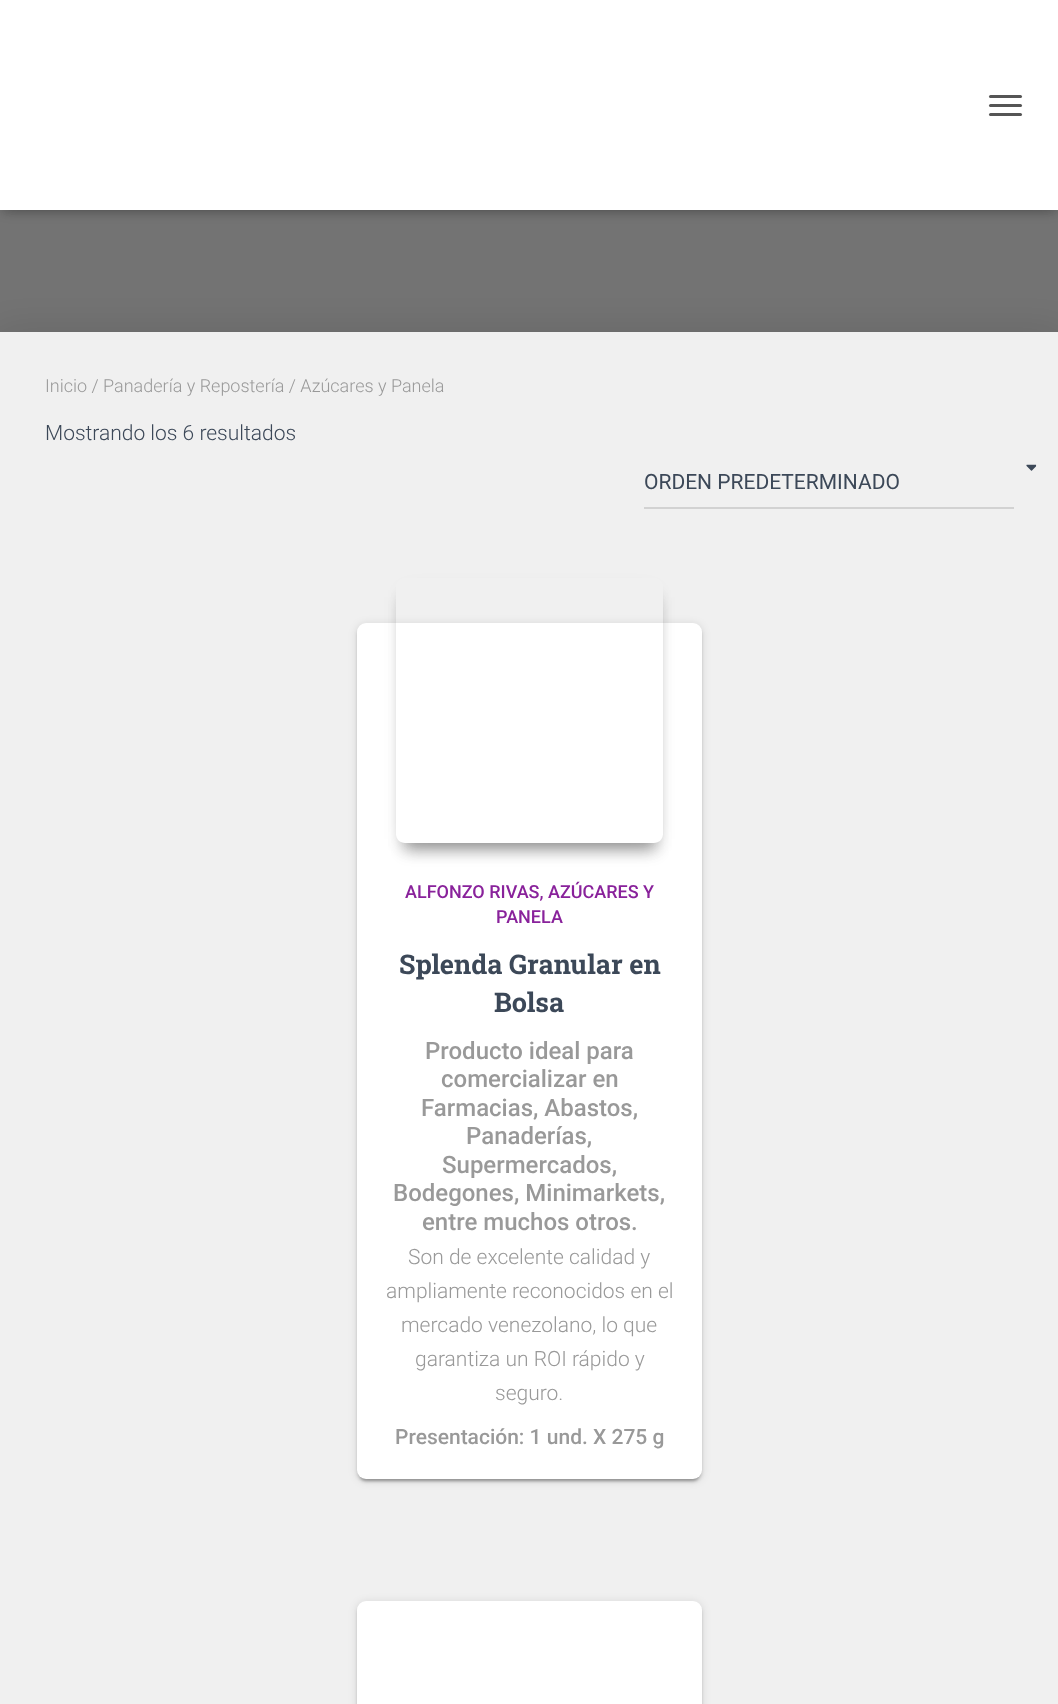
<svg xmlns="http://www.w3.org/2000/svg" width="1058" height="1704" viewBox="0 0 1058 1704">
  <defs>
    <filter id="blur1" x="-50%" y="-200%" width="200%" height="500%"><feGaussianBlur stdDeviation="4"/></filter>
    <filter id="blur2" x="-50%" y="-200%" width="200%" height="500%"><feGaussianBlur stdDeviation="7.5"/></filter>
    <filter id="blur3" x="-50%" y="-200%" width="200%" height="500%"><feGaussianBlur stdDeviation="22.5"/></filter>
    <filter id="blur4" x="-50%" y="-200%" width="200%" height="500%"><feGaussianBlur stdDeviation="1"/></filter>
    <filter id="blur5" x="-50%" y="-200%" width="200%" height="500%"><feGaussianBlur stdDeviation="1.5"/></filter>
    <clipPath id="clip1"><path d="M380 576H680V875H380ZM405 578H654C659 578 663 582 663 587V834C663 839 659 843 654 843H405C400 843 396 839 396 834V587C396 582 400 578 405 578Z" clip-rule="evenodd"/></clipPath>
    <clipPath id="clip2"><path d="M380 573H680V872H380ZM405 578H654C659 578 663 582 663 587V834C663 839 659 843 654 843H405C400 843 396 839 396 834V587C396 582 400 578 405 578Z" clip-rule="evenodd"/></clipPath>
    <clipPath id="clip3"><path d="M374 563H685V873H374ZM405 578H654C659 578 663 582 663 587V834C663 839 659 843 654 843H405C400 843 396 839 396 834V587C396 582 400 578 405 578Z" clip-rule="evenodd"/></clipPath>
    <filter id="blur6" x="-50%" y="-200%" width="200%" height="500%"><feGaussianBlur stdDeviation="11"/></filter>
  </defs>
  <rect width="100%" height="100%" fill="#737373"/>
  <rect x="3" y="9" width="1053" height="204" fill="#000000" fill-opacity="0.1" filter="url(#blur1)"/>
  <rect x="0" y="2" width="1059" height="210" fill="#000000" fill-opacity="0.12" filter="url(#blur2)"/>
  <rect x="9" y="11" width="1041" height="192" fill="#000000" fill-opacity="0.42" filter="url(#blur2)"/>
  <rect x="0" y="0" width="1058" height="210" fill="#ffffff"/>
  <rect x="989" y="95" width="33" height="3" rx="1.5" fill="#555555"/>
  <rect x="989" y="104" width="33" height="3" rx="1.5" fill="#555555"/>
  <rect x="989" y="113" width="33" height="3" rx="1.5" fill="#555555"/>
  <rect x="-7" y="333" width="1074" height="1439" fill="#000000" fill-opacity="0.12" filter="url(#blur3)"/>
  <rect x="0" y="332" width="1058" height="1372" fill="#f0f0f0"/>
  <text x="45" y="392" font-family="Roboto" font-size="18" font-weight="300" fill="#999999">Inicio / Panadería y Repostería / Azúcares y Panela</text>
  <text x="45" y="440" font-family="Roboto" font-size="21" font-weight="300" fill="#3c4858">Mostrando los 6 resultados</text>
  <image x="1026" y="464" width="11" height="7" href="img1.png"/>
  <rect x="644" y="507" width="370" height="2" fill="#d2d2d2"/>
  <text x="644" y="489" font-family="Roboto" font-size="21" fill="#3c4858">ORDEN PREDETERMINADO</text>
  <rect x="357" y="624" width="345" height="857" rx="9" fill="#000000" fill-opacity="0.12" filter="url(#blur1)"/>
  <rect x="360" y="630" width="339" height="851" rx="6" fill="#000000" fill-opacity="0.2" filter="url(#blur4)"/>
  <rect x="357" y="626" width="345" height="856" rx="9" fill="#000000" fill-opacity="0.14" filter="url(#blur5)"/>
  <rect x="357" y="623" width="345" height="856" rx="9" fill="#ffffff"/>
  <g clip-path="url(#clip1)">
    <rect x="404" y="600" width="252" height="251" rx="1.5" fill="#000000" fill-opacity="0.2" filter="url(#blur2)"/>
  </g>
  <g clip-path="url(#clip2)">
    <rect x="404" y="597" width="252" height="251" rx="1.5" fill="#000000" fill-opacity="0.2" filter="url(#blur2)"/>
  </g>
  <g clip-path="url(#clip3)">
    <rect x="408" y="597" width="243" height="242" fill="#000000" fill-opacity="0.24" filter="url(#blur6)"/>
  </g>
  <text x="405" y="898" font-family="Roboto" font-size="18" font-weight="500" fill="#89229b">ALFONZO RIVAS, AZÚCARES Y</text>
  <text x="496" y="923" font-family="Roboto" font-size="18" font-weight="500" fill="#89229b">PANELA</text>
  <text x="399" y="974" font-family="Roboto Slab" font-size="27" font-weight="bold" fill="#3c4858">Splenda Granular en</text>
  <text x="494" y="1012" font-family="Roboto Slab" font-size="27" font-weight="bold" fill="#3c4858">Bolsa</text>
  <text x="425" y="1059" font-family="Roboto" font-size="24" font-weight="500" fill="#999999">Producto ideal para</text>
  <text x="441" y="1087" font-family="Roboto" font-size="24" font-weight="500" fill="#999999">comercializar en</text>
  <text x="421" y="1116" font-family="Roboto" font-size="24" font-weight="500" fill="#999999">Farmacias, Abastos,</text>
  <text x="466" y="1144" font-family="Roboto" font-size="24" font-weight="500" fill="#999999">Panaderías,</text>
  <text x="442" y="1173" font-family="Roboto" font-size="24" font-weight="500" fill="#999999">Supermercados,</text>
  <text x="393" y="1201" font-family="Roboto" font-size="24" font-weight="500" fill="#999999">Bodegones, Minimarkets,</text>
  <text x="422" y="1230" font-family="Roboto" font-size="24" font-weight="500" fill="#999999">entre muchos otros.</text>
  <text x="408" y="1264" font-family="Roboto" font-size="21" font-weight="300" fill="#999999">Son de excelente calidad y</text>
  <text x="386" y="1298" font-family="Roboto" font-size="21" font-weight="300" fill="#999999">ampliamente reconocidos en el</text>
  <text x="401" y="1332" font-family="Roboto" font-size="21" font-weight="300" fill="#999999">mercado venezolano, lo que</text>
  <text x="415" y="1366" font-family="Roboto" font-size="21" font-weight="300" fill="#999999">garantiza un ROI rápido y</text>
  <text x="495" y="1400" font-family="Roboto" font-size="21" font-weight="300" fill="#999999">seguro.</text>
  <text x="395" y="1444" font-family="Roboto" font-size="21" font-weight="500" fill="#999999">Presentación: 1 und. X 275 g</text>
  <rect x="357" y="1602" width="345" height="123" rx="9" fill="#000000" fill-opacity="0.12" filter="url(#blur1)"/>
  <rect x="357" y="1604" width="345" height="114" rx="9" fill="#000000" fill-opacity="0.14" filter="url(#blur5)"/>
  <rect x="357" y="1601" width="345" height="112" rx="9" fill="#ffffff"/>
</svg>
